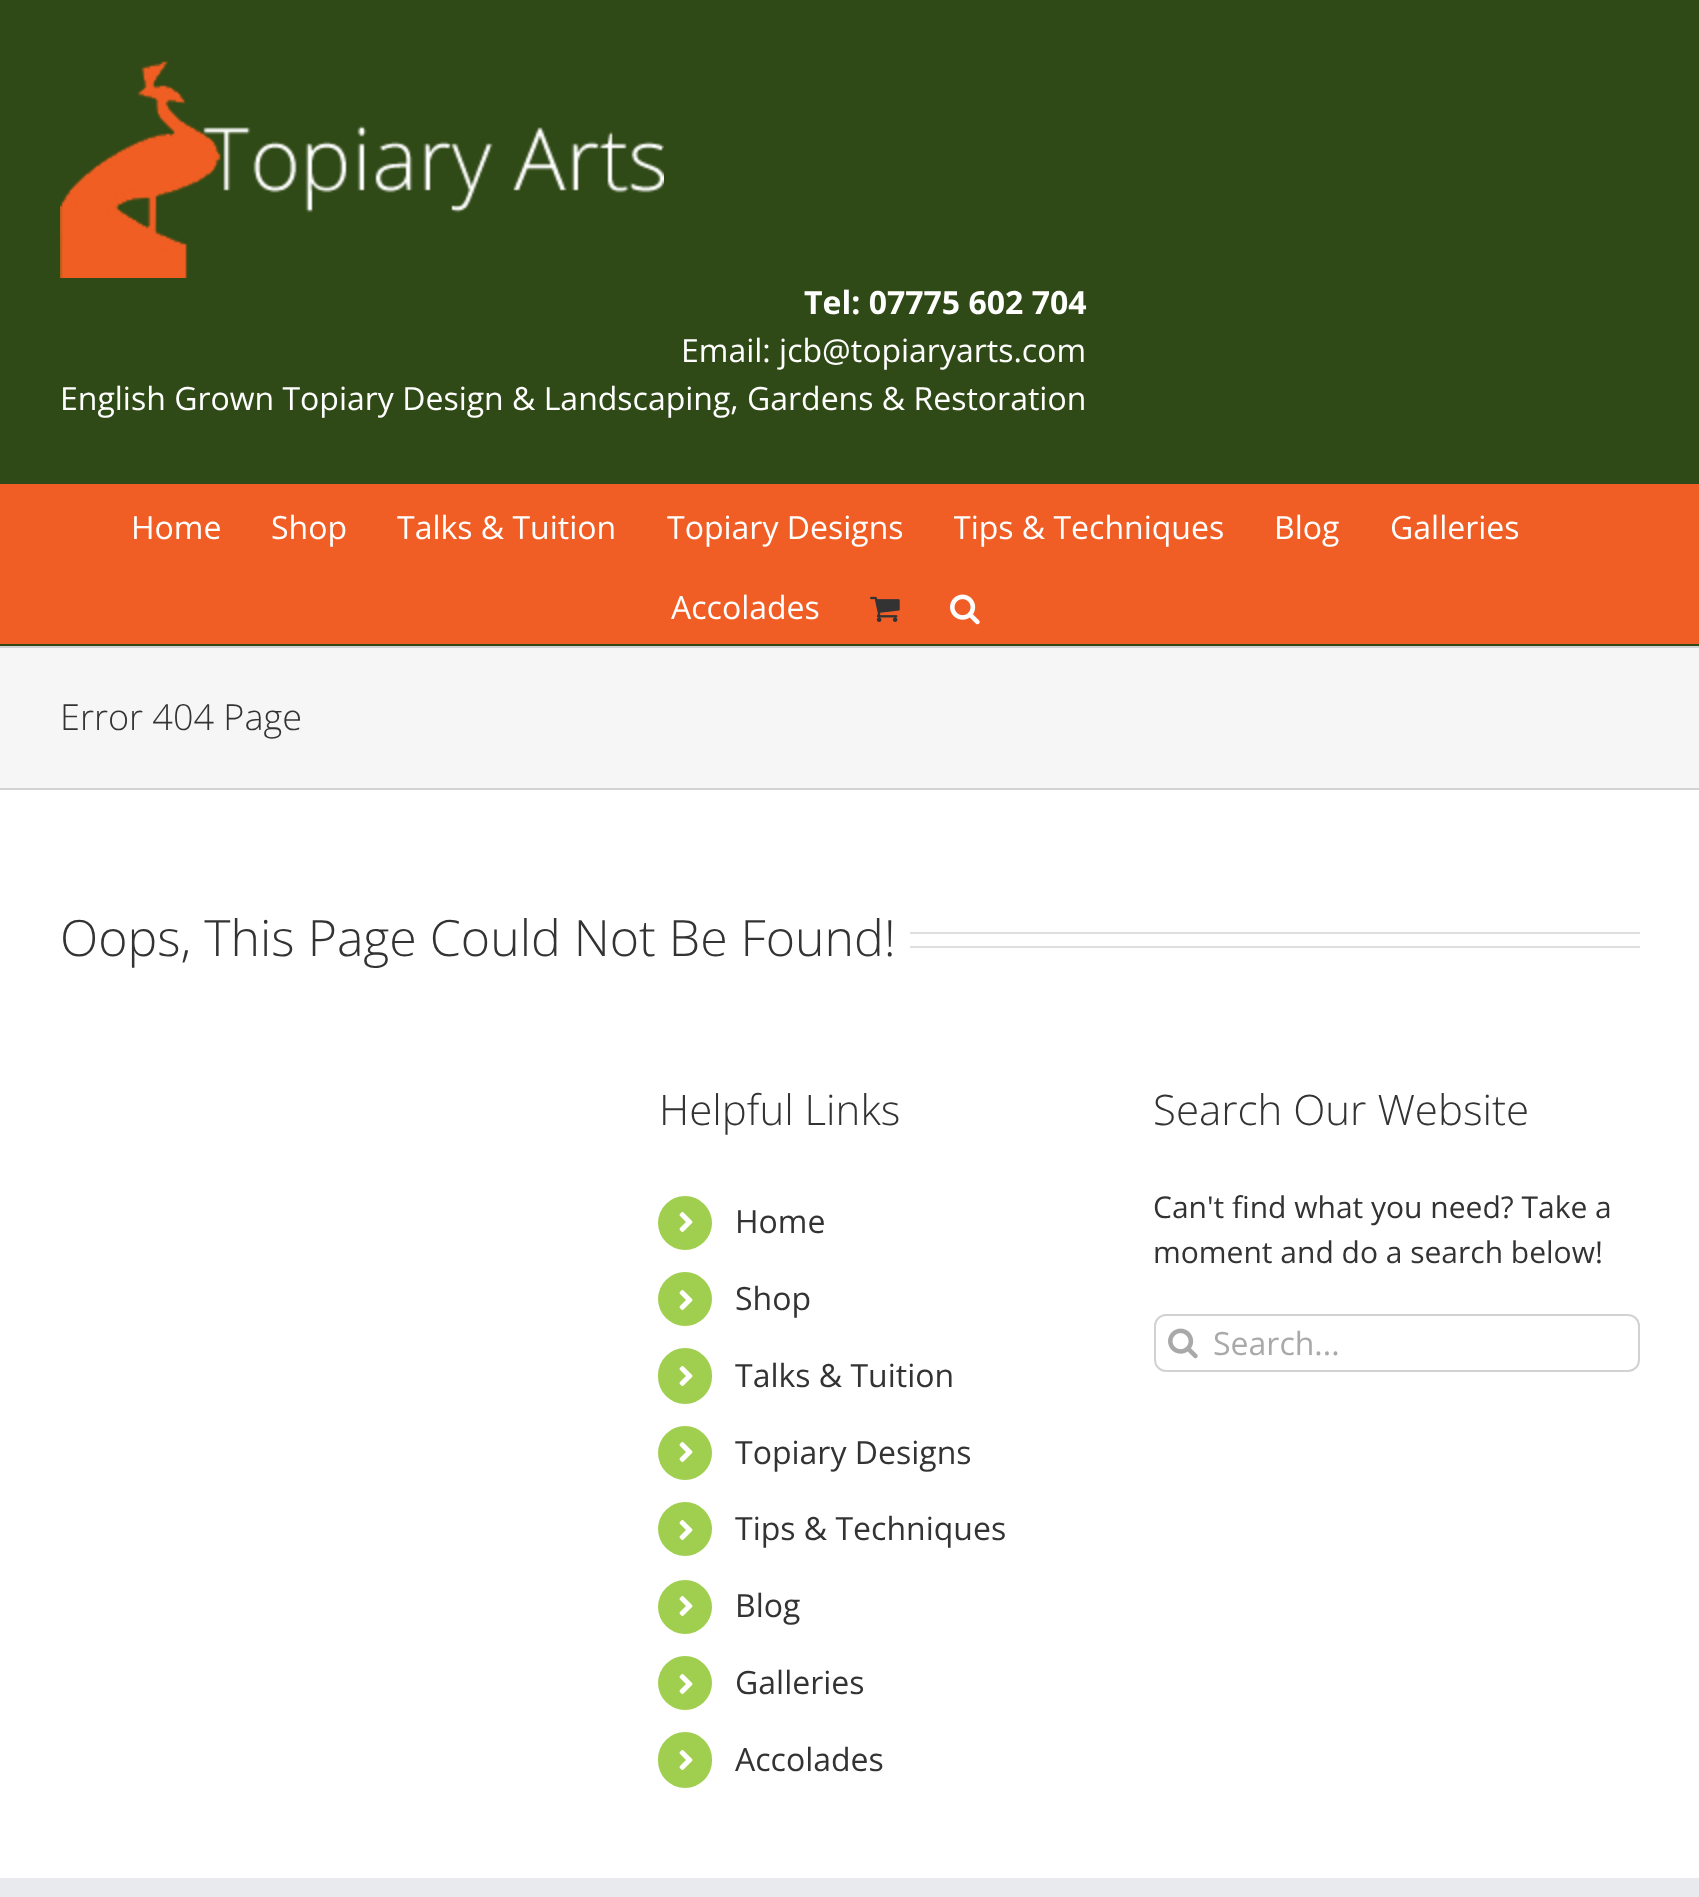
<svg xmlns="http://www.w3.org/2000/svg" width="1699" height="1897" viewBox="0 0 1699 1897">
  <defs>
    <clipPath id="clip1"><rect x="954" y="484" width="320" height="80"/></clipPath>
  </defs>
  <rect width="100%" height="100%" fill="#ffffff"/>
  <rect x="0" y="0" width="1699" height="484" fill="#304a17"/>
  <image x="60" y="60" width="604" height="218" href="img1.png"/>
  <text x="804" y="314" font-family="Open Sans" font-size="32" font-weight="bold" fill="#ffffff">Tel: 07775 602 704</text>
  <text x="681" y="362" font-family="Open Sans" font-size="32" fill="#ffffff">Email: jcb@topiaryarts.com</text>
  <text x="60" y="410" font-family="Open Sans" font-size="32" fill="#ffffff">English Grown Topiary Design &amp; Landscaping, Gardens &amp; Restoration</text>
  <rect x="0" y="484" width="1699" height="160" fill="#f05e25"/>
  <rect x="0" y="644" width="1699" height="2" fill="#304a17"/>
  <text x="131" y="539" font-family="Open Sans" font-size="32" fill="#ffffff">Home</text>
  <text x="271" y="539" font-family="Open Sans" font-size="32" fill="#ffffff">Shop</text>
  <text x="397" y="539" font-family="Open Sans" font-size="32" fill="#ffffff">Talks &amp; Tuition</text>
  <text x="667" y="539" font-family="Open Sans" font-size="32" fill="#ffffff">Topiary Designs</text>
  <g clip-path="url(#clip1)">
    <text x="953" y="539" font-family="Open Sans" font-size="32" fill="#ffffff">Tips &amp; Techniques</text>
  </g>
  <text x="1274" y="539" font-family="Open Sans" font-size="32" fill="#ffffff">Blog</text>
  <text x="1390" y="539" font-family="Open Sans" font-size="32" fill="#ffffff">Galleries</text>
  <text x="671" y="619" font-family="Open Sans" font-size="32" fill="#ffffff">Accolades</text>
  <image x="870" y="596" width="30" height="26" href="img2.png"/>
  <image x="950" y="594" width="30" height="31" href="img3.png"/>
  <rect x="0" y="648" width="1699" height="140" fill="#f6f6f6"/>
  <rect x="0" y="646" width="1699" height="2" fill="#d2d3d4"/>
  <rect x="0" y="788" width="1699" height="2" fill="#d2d3d4"/>
  <text x="60" y="730" font-family="Open Sans" font-size="36" font-weight="300" fill="#333333">Error 404 Page</text>
  <text x="60" y="956" font-family="Open Sans" font-size="50" font-weight="300" fill="#333333">Oops, This Page Could Not Be Found!</text>
  <rect x="910" y="932" width="730" height="2" fill="#e0dede"/>
  <rect x="910" y="946" width="730" height="2" fill="#e0dede"/>
  <text x="659" y="1125" font-family="Open Sans" font-size="42" font-weight="300" fill="#333333">Helpful Links</text>
  <circle cx="685" cy="1223" r="27" fill="#a0ce4e"/>
  <image x="679" y="1212" width="14" height="20" href="img4.png"/>
  <text x="735" y="1233" font-family="Open Sans" font-size="32" fill="#333333">Home</text>
  <circle cx="685" cy="1299" r="27" fill="#a0ce4e"/>
  <image x="679" y="1290" width="14" height="20" href="img4.png"/>
  <text x="735" y="1310" font-family="Open Sans" font-size="32" fill="#333333">Shop</text>
  <rect x="658" y="1348" width="54" height="56" rx="27" fill="#a0ce4e"/>
  <image x="679" y="1366" width="14" height="20" href="img4.png"/>
  <text x="735" y="1387" font-family="Open Sans" font-size="32" fill="#333333">Talks &amp; Tuition</text>
  <circle cx="685" cy="1453" r="27" fill="#a0ce4e"/>
  <image x="679" y="1442" width="14" height="20" href="img4.png"/>
  <text x="735" y="1464" font-family="Open Sans" font-size="32" fill="#333333">Topiary Designs</text>
  <circle cx="685" cy="1529" r="27" fill="#a0ce4e"/>
  <image x="679" y="1520" width="14" height="20" href="img4.png"/>
  <text x="735" y="1540" font-family="Open Sans" font-size="32" fill="#333333">Tips &amp; Techniques</text>
  <circle cx="685" cy="1607" r="27" fill="#a0ce4e"/>
  <image x="679" y="1596" width="14" height="20" href="img4.png"/>
  <text x="735" y="1617" font-family="Open Sans" font-size="32" fill="#333333">Blog</text>
  <circle cx="685" cy="1683" r="27" fill="#a0ce4e"/>
  <image x="679" y="1674" width="14" height="20" href="img4.png"/>
  <text x="735" y="1694" font-family="Open Sans" font-size="32" fill="#333333">Galleries</text>
  <rect x="658" y="1732" width="54" height="56" rx="27" fill="#a0ce4e"/>
  <image x="679" y="1750" width="14" height="20" href="img4.png"/>
  <text x="735" y="1771" font-family="Open Sans" font-size="32" fill="#333333">Accolades</text>
  <text x="1153" y="1125" font-family="Open Sans" font-size="42" font-weight="300" fill="#333333">Search Our Website</text>
  <text x="1153" y="1218" font-family="Open Sans" font-size="30" fill="#333333">Can't find what you need? Take a</text>
  <text x="1153" y="1263" font-family="Open Sans" font-size="30" fill="#333333">moment and do a search below!</text>
  <rect x="1155" y="1315" width="484" height="56" rx="11" fill="none" stroke="#d2d2d2" stroke-width="2"/>
  <image x="1168" y="1328" width="30" height="31" href="img5.png"/>
  <text x="1213" y="1355" font-family="Open Sans" font-size="32" fill="#aaa9a9">Search...</text>
  <rect x="0" y="1878" width="1699" height="19" fill="#e9eaee"/>
</svg>
